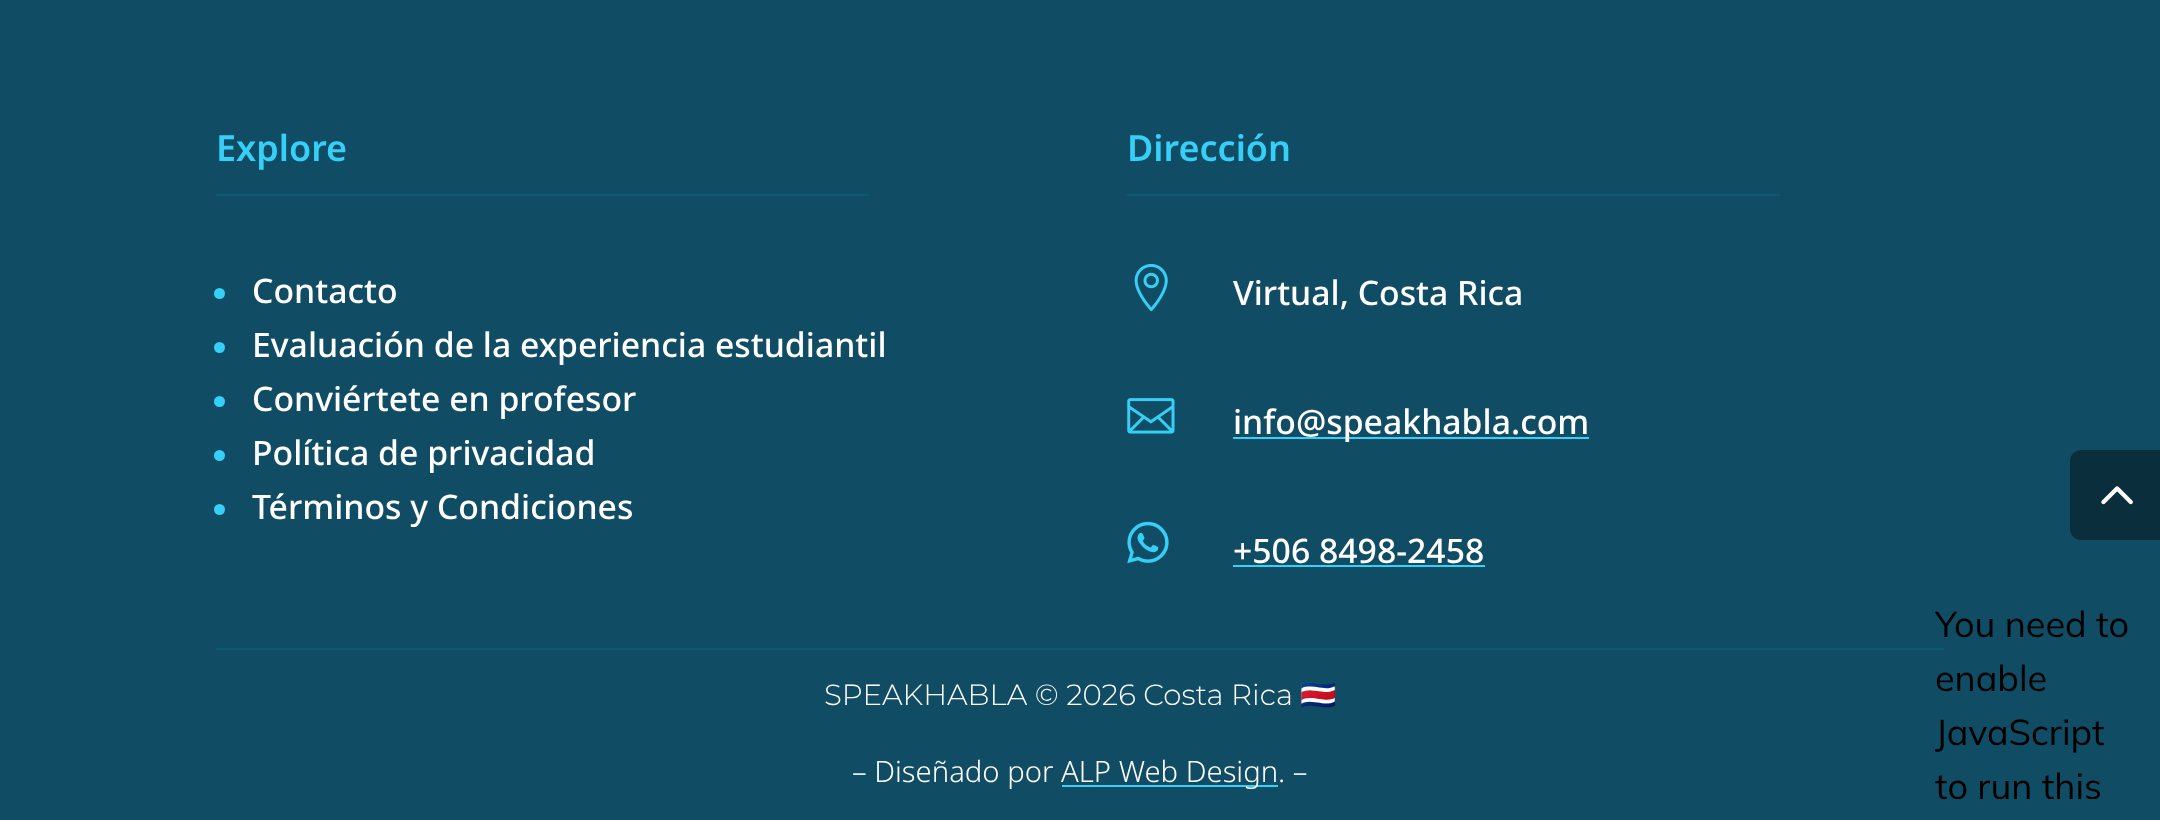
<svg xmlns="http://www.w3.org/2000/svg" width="2160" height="820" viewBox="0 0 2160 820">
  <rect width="100%" height="100%" fill="#104d64"/>
  <rect x="216" y="194" width="653" height="2" fill="#0c5972"/>
  <text x="216" y="161" font-family="Noto Sans" font-size="36" font-weight="600" fill="#36cff8">Explore</text>
  <circle cx="219.5" cy="293.5" r="5.5" fill="#36cff8"/>
  <text x="252" y="303" font-family="Noto Sans" font-size="33.75" font-weight="500" fill="#ffffff">Contacto</text>
  <circle cx="219.5" cy="347.5" r="5.5" fill="#36cff8"/>
  <text x="252" y="357" font-family="Noto Sans" font-size="33.75" font-weight="500" fill="#ffffff">Evaluación de la experiencia estudiantil</text>
  <circle cx="219.5" cy="401.5" r="5.5" fill="#36cff8"/>
  <text x="252" y="411" font-family="Noto Sans" font-size="33.75" font-weight="500" fill="#ffffff">Conviértete en profesor</text>
  <circle cx="219.5" cy="455.5" r="5.5" fill="#36cff8"/>
  <text x="252" y="465" font-family="Noto Sans" font-size="33.75" font-weight="500" fill="#ffffff">Política de privacidad</text>
  <circle cx="219.5" cy="509.5" r="5.5" fill="#36cff8"/>
  <text x="252" y="519" font-family="Noto Sans" font-size="33.75" font-weight="500" fill="#ffffff">Términos y Condiciones</text>
  <rect x="1127" y="194" width="653" height="2" fill="#0c5972"/>
  <text x="1127" y="161" font-family="Noto Sans" font-size="36" font-weight="600" fill="#36cff8">Dirección</text>
  <image x="1134" y="263" width="34" height="49" href="img1.png"/>
  <text x="1233" y="305" font-family="Noto Sans" font-size="33.75" font-weight="500" fill="#ffffff">Virtual, Costa Rica</text>
  <image x="1127" y="398" width="48" height="36" href="img2.png"/>
  <rect x="1233" y="437" width="356" height="2" fill="#36cff8"/>
  <text x="1233" y="434" font-family="Noto Sans" font-size="33.75" font-weight="500" fill="#ffffff">info@speakhabla.com</text>
  <image x="1127" y="521" width="42" height="43" href="img3.png"/>
  <text x="1233" y="563" font-family="Noto Sans" font-size="33.75" font-weight="500" fill="#ffffff">+506 8498-2458</text>
  <rect x="1233" y="565" width="252" height="2" fill="#36cff8"/>
  <rect x="216" y="648" width="1728" height="2" fill="#0c5972"/>
  <text x="824" y="705" font-family="Montserrat" font-size="29.25" font-weight="100" fill="#ffffff">SPEAKHABLA © 2026 Costa Rica</text>
  <text x="1300" y="705" font-family="Noto Color Emoji" font-size="29.25" fill="#ffffff">🇨🇷</text>
  <text x="852" y="782" font-family="Noto Sans" font-size="29.25" font-weight="300" fill="#ffffff">– Diseñado por</text>
  <rect x="1062" y="785" width="216" height="2" fill="#36cff8"/>
  <text x="1061" y="782" font-family="Noto Sans" font-size="29.25" font-weight="300" fill="#ffffff">ALP Web Design. –</text>
  <path d="M2081 450H2160V540H2081C2075 540 2070 535 2070 529V461C2070 455 2075 450 2081 450Z" fill="#0a2e3c"/>
  <image x="2101" y="486" width="32" height="19" href="img4.png"/>
  <image x="1935" y="610" width="193" height="189" href="img5.png"/>
</svg>
